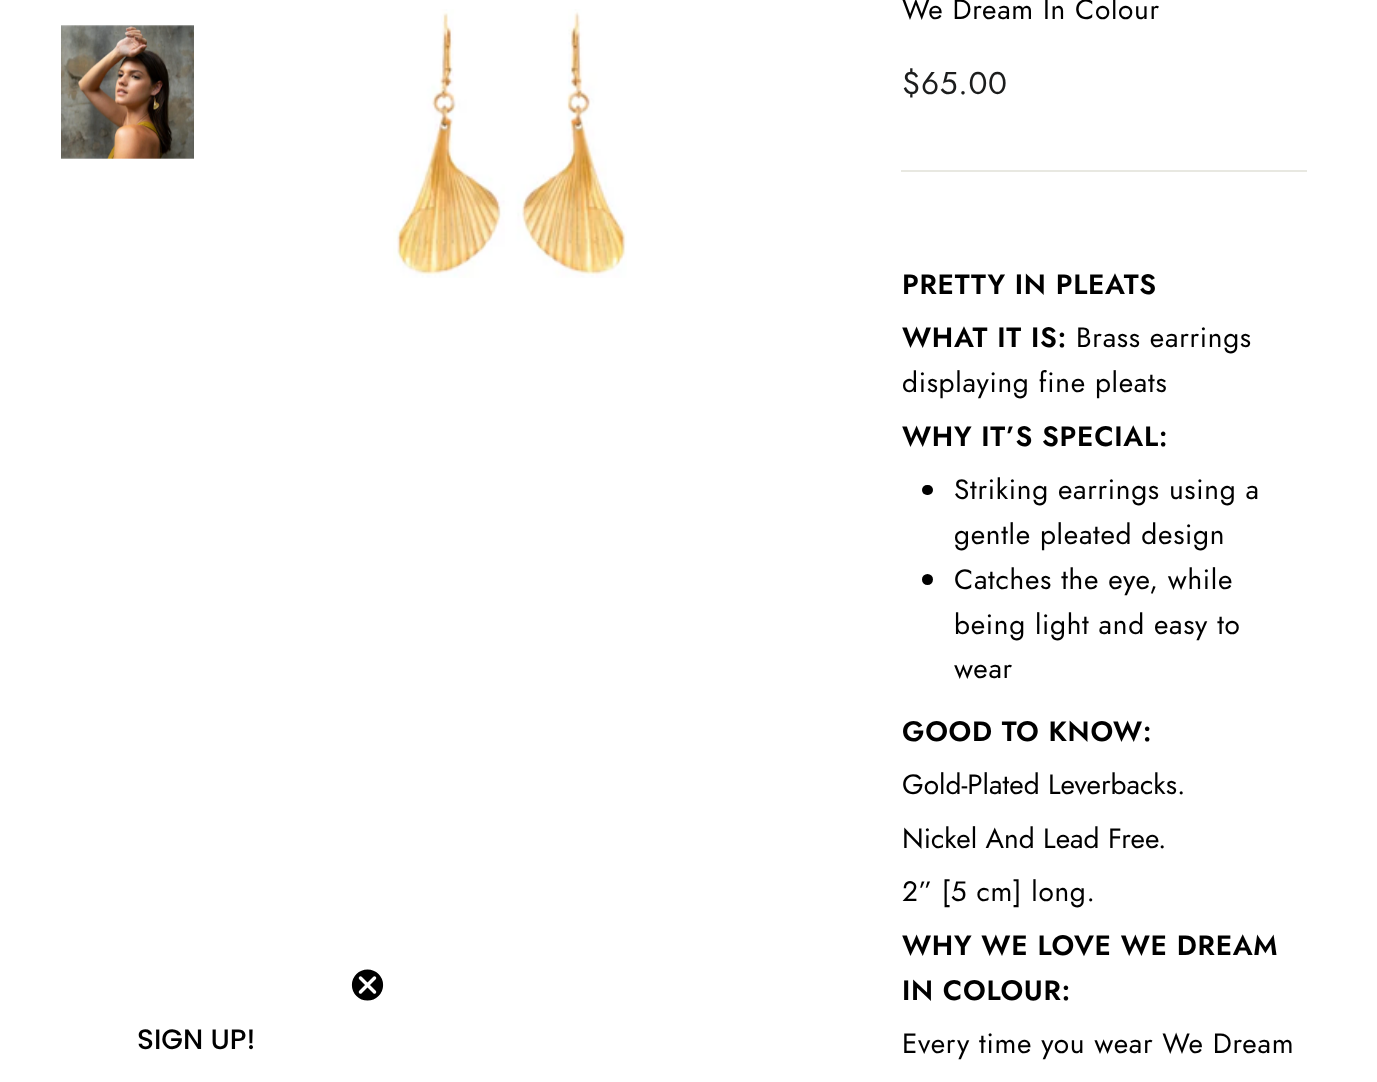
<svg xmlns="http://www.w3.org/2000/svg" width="1377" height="1082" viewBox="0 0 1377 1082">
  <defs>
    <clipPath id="clip1"><rect x="350" y="968" width="35" height="35"/></clipPath>
  </defs>
  <rect width="100%" height="100%" fill="#ffffff"/>
  <circle cx="367.5" cy="985" r="16.5" fill="#000000"/>
  <g clip-path="url(#clip1)">
    <circle cx="367.5" cy="985" r="16.5" fill="none" stroke="#ffffff" stroke-width="1.8"/>
  </g>
  <path d="M360.5 978L374.5 992M360.5 992L374.5 978Z" fill="none" stroke="#ffffff" stroke-width="3.5" stroke-linecap="round" stroke-linejoin="round"/>
  <text x="137" y="1049" font-family="Poppins" font-size="28" font-weight="500" fill="#000000">SIGN UP!</text>
  <image x="61" y="25" width="133" height="134" href="img1.png"/>
  <image x="393" y="9" width="234" height="269" href="img2.png"/>
  <text x="902" y="19" font-family="Jost" font-size="28" letter-spacing="0.7" fill="#000000">We Dream In Colour</text>
  <text x="902" y="94" font-family="Jost" font-size="31.5" letter-spacing="0.7" fill="#1c1d1d">$65.00</text>
  <rect x="901" y="170" width="406" height="2" fill="#e8e8e1"/>
  <text x="902" y="294" font-family="Jost" font-size="28" font-weight="600" letter-spacing="0.7" fill="#000000">PRETTY IN PLEATS</text>
  <text x="902" y="347" font-family="Jost" font-size="28" font-weight="600" letter-spacing="0.7" fill="#000000">WHAT IT IS:</text>
  <text x="1076" y="347" font-family="Jost" font-size="28" letter-spacing="0.7" fill="#000000">Brass earrings</text>
  <text x="902" y="392" font-family="Jost" font-size="28" letter-spacing="0.7" fill="#000000">displaying fine pleats</text>
  <text x="902" y="446" font-family="Jost" font-size="28" font-weight="600" letter-spacing="0.7" fill="#000000">WHY IT’S SPECIAL:</text>
  <rect x="922" y="485" width="11" height="10" rx="5" fill="#000000"/>
  <text x="954" y="499" font-family="Jost" font-size="28" letter-spacing="0.7" fill="#000000">Striking earrings using a</text>
  <text x="954" y="544" font-family="Jost" font-size="28" letter-spacing="0.7" fill="#000000">gentle pleated design</text>
  <circle cx="927.5" cy="579.5" r="5.5" fill="#000000"/>
  <text x="954" y="589" font-family="Jost" font-size="28" letter-spacing="0.7" fill="#000000">Catches the eye, while</text>
  <text x="954" y="634" font-family="Jost" font-size="28" letter-spacing="0.7" fill="#000000">being light and easy to</text>
  <text x="954" y="678" font-family="Jost" font-size="28" letter-spacing="0.7" fill="#000000">wear</text>
  <text x="902" y="741" font-family="Jost" font-size="28" font-weight="600" letter-spacing="0.7" fill="#000000">GOOD TO KNOW:</text>
  <text x="902" y="794" font-family="Jost" font-size="28" fill="#000000">Gold-Plated Leverbacks.</text>
  <text x="902" y="848" font-family="Jost" font-size="28" fill="#000000">Nickel And Lead Free.</text>
  <text x="902" y="901" font-family="Jost" font-size="28" letter-spacing="0.7" fill="#000000">2” [5 cm] long.</text>
  <text x="902" y="955" font-family="Jost" font-size="28" font-weight="600" letter-spacing="0.7" fill="#000000">WHY WE LOVE WE DREAM</text>
  <text x="902" y="1000" font-family="Jost" font-size="28" font-weight="600" letter-spacing="0.7" fill="#000000">IN COLOUR:</text>
  <text x="902" y="1053" font-family="Jost" font-size="28" letter-spacing="0.7" fill="#000000">Every time you wear We Dream</text>
</svg>
